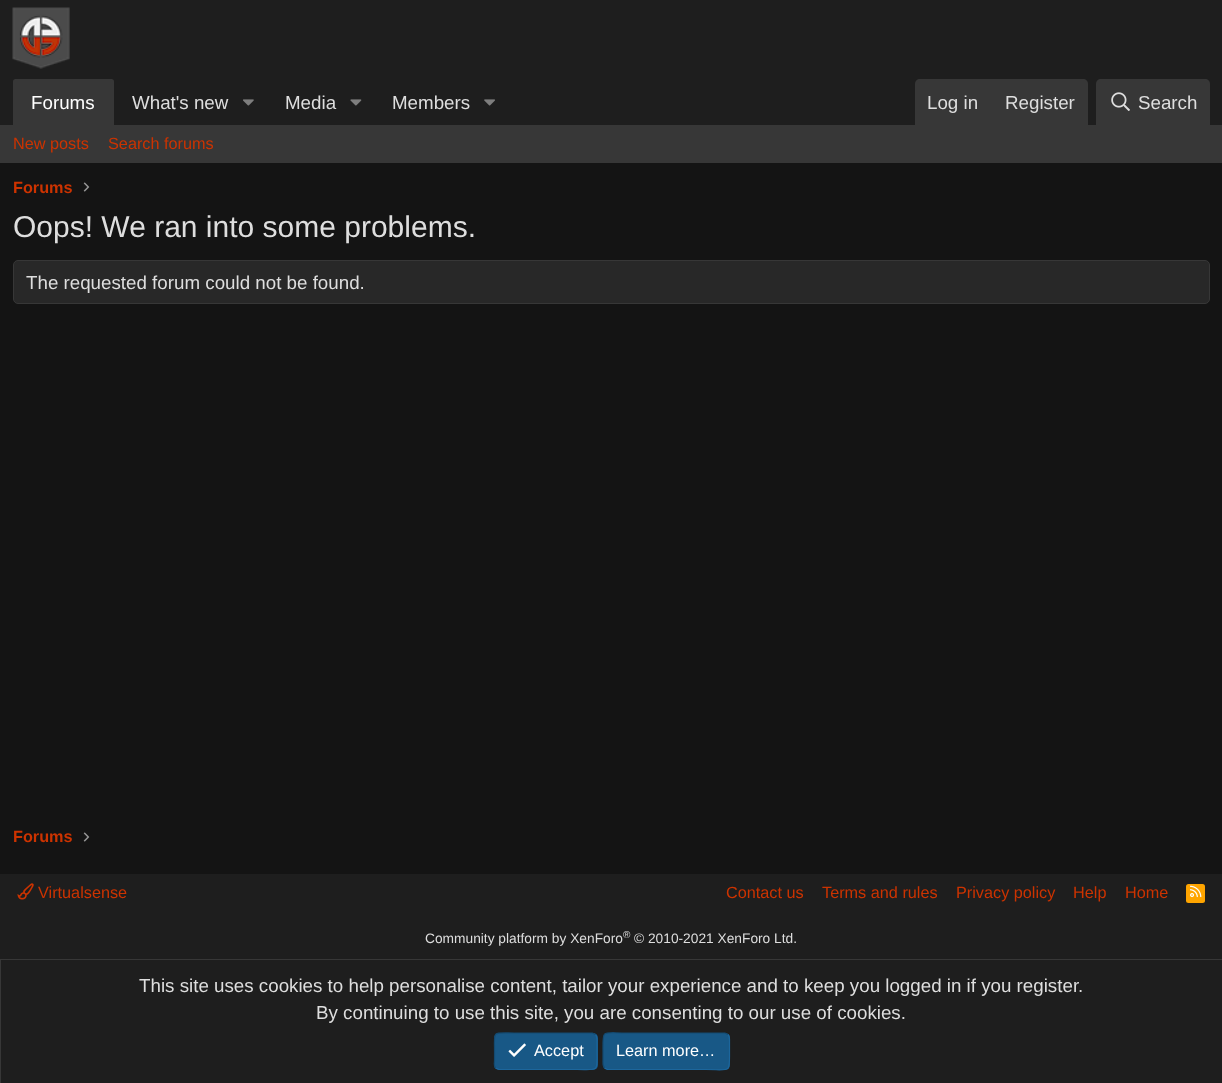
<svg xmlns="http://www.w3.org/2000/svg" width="1222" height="1083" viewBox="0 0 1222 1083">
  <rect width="100%" height="100%" fill="#141414"/>
  <rect x="0" y="0" width="1222" height="125" fill="#1e1e1e"/>
  <image x="12" y="7" width="58" height="62" href="img1.png"/>
  <path d="M15.5 79H111.5C113 79 114 80 114 81.5V125H13V81.5C13 80 14 79 15.5 79Z" fill="#373737"/>
  <text x="31" y="109" font-family="Liberation Sans" font-size="18.75" fill="#ffffff">Forums</text>
  <text x="132" y="109" font-family="Liberation Sans" font-size="18.75" fill="#dedede">What's new</text>
  <image x="243" y="99" width="11" height="7" href="img2.png"/>
  <text x="285" y="109" font-family="Liberation Sans" font-size="18.75" fill="#dedede">Media</text>
  <image x="350" y="99" width="12" height="7" href="img3.png"/>
  <text x="392" y="109" font-family="Liberation Sans" font-size="18.75" fill="#dedede">Members</text>
  <image x="484" y="99" width="11" height="7" href="img4.png"/>
  <path d="M920 79H1083C1086 79 1088 81 1088 84V125H915V84C915 81 917 79 920 79Z" fill="#373737"/>
  <text x="927" y="109" font-family="Liberation Sans" font-size="18.75" fill="#dedede">Log in</text>
  <text x="1005" y="109" font-family="Liberation Sans" font-size="18.75" fill="#dedede">Register</text>
  <path d="M1101 79H1205C1208 79 1210 81 1210 84V125H1096V84C1096 81 1098 79 1101 79Z" fill="#373737"/>
  <image x="1111" y="92" width="19" height="19" href="img5.png"/>
  <text x="1138" y="109" font-family="Liberation Sans" font-size="18.75" fill="#dedede">Search</text>
  <rect x="0" y="125" width="1222" height="38" fill="#373737"/>
  <text x="13" y="149" font-family="Liberation Sans" font-size="16.25" fill="#cc3300">New posts</text>
  <text x="108" y="149" font-family="Liberation Sans" font-size="16.25" fill="#cc3300">Search forums</text>
  <text x="13" y="193" font-family="Liberation Sans" font-size="16.25" font-weight="bold" fill="#cc3300">Forums</text>
  <image x="83" y="182" width="7" height="10" href="img6.png"/>
  <text x="13" y="237" font-family="Liberation Sans" font-size="30" fill="#dedede">Oops! We ran into some problems.</text>
  <rect x="13.5" y="260.5" width="1196" height="43" rx="4.5" fill="#282828" stroke="#373737"/>
  <text x="26" y="289" font-family="Liberation Sans" font-size="18.75" fill="#dedede">The requested forum could not be found.</text>
  <text x="13" y="842" font-family="Liberation Sans" font-size="16.25" font-weight="bold" fill="#cc3300">Forums</text>
  <image x="83" y="832" width="7" height="10" href="img6.png"/>
  <rect x="0" y="874" width="1222" height="85" fill="#1e1e1e"/>
  <image x="17" y="883" width="17" height="17" href="img7.png"/>
  <text x="38" y="898" font-family="Liberation Sans" font-size="16.25" fill="#cc3300">Virtualsense</text>
  <text x="726" y="898" font-family="Liberation Sans" font-size="16.25" fill="#cc3300">Contact us</text>
  <text x="822" y="898" font-family="Liberation Sans" font-size="16.25" fill="#cc3300">Terms and rules</text>
  <text x="956" y="898" font-family="Liberation Sans" font-size="16.25" fill="#cc3300">Privacy policy</text>
  <text x="1073" y="898" font-family="Liberation Sans" font-size="16.25" fill="#cc3300">Help</text>
  <text x="1125" y="898" font-family="Liberation Sans" font-size="16.25" fill="#cc3300">Home</text>
  <rect x="1186" y="884" width="19" height="19" rx="2.5" fill="#ffa500"/>
  <image x="1190" y="885" width="12" height="13" href="img8.png"/>
  <text x="425" y="943" font-family="Liberation Sans" font-size="13.75" fill="#dedede">Community platform by XenForo</text>
  <text x="623" y="938" font-family="Liberation Sans" font-size="10" fill="#dedede">®</text>
  <text x="634" y="943" font-family="Liberation Sans" font-size="13.75" fill="#dedede">© 2010-2021 XenForo Ltd.</text>
  <rect x="0.5" y="959.5" width="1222" height="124" fill="#1e1e1e" stroke="#373737"/>
  <text x="139" y="992" font-family="Liberation Sans" font-size="18.75" fill="#dedede">This site uses cookies to help personalise content, tailor your experience and to keep you logged in if you register.</text>
  <text x="316" y="1019" font-family="Liberation Sans" font-size="18.75" fill="#dedede">By continuing to use this site, you are consenting to our use of cookies.</text>
  <rect x="494" y="1033" width="104" height="37" rx="5" fill="#185886"/>
  <path d="M595.5 1034.5C597.5 1036.5 597 1039.5 597 1042V1051C597 1072.5 599.5 1069.5 577 1069.5H499L495.5 1068" fill="none" stroke="#1c669c" stroke-width="1.2"/>
  <path d="M495.5 1068C493.5 1066 494.5 1063 494.5 1060.5V1051C494.5 1030 491.5 1033 514.5 1033H592.5L595.5 1034.5" fill="none" stroke="#144a70" stroke-width="1.2"/>
  <image x="508" y="1043" width="18" height="14" href="img9.png"/>
  <text x="534" y="1056" font-family="Liberation Sans" font-size="16.25" fill="#ffffff">Accept</text>
  <rect x="603" y="1033" width="127" height="37" rx="5" fill="#185886"/>
  <path d="M728 1034.5C730 1036.5 729.5 1039.5 729.5 1042V1051C729.5 1074 731.5 1069.5 705.5 1069.5H607.5L604.5 1068" fill="none" stroke="#1c669c" stroke-width="1.2"/>
  <path d="M604.5 1068C602.5 1066 603 1063 603 1060.5V1051C603 1028.5 601 1033 627 1033H725L728 1034.5" fill="none" stroke="#144a70" stroke-width="1.2"/>
  <text x="616" y="1056" font-family="Liberation Sans" font-size="16.25" fill="#ffffff">Learn more…</text>
</svg>
